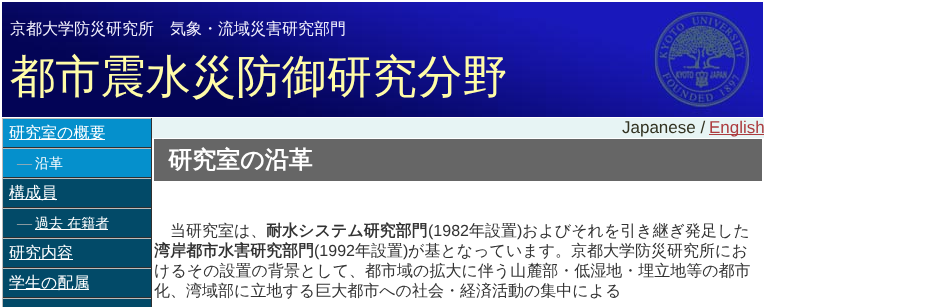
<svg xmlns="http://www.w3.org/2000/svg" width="929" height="307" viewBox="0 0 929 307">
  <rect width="100%" height="100%" fill="#ffffff"/>
  <image x="2" y="2" width="761" height="115" href="img1.png"/>
  <text x="10" y="34" font-family="WenQuanYi Zen Hei" font-size="16" font-weight="500" fill="#f5f3fe">京都大学防災研究所</text>
  <text x="170" y="34" font-family="WenQuanYi Zen Hei" font-size="16" font-weight="500" fill="#f5f3fe">気象・流域災害研究部門</text>
  <text x="10" y="92" font-family="WenQuanYi Zen Hei" font-size="45.25" font-weight="500" fill="#fffca7">都市震水災防御研究分野</text>
  <rect x="3" y="119" width="148" height="28" fill="#0590cc"/>
  <rect x="2" y="118" width="150" height="1" fill="#bcbcbc"/>
  <rect x="151" y="118" width="1" height="30" fill="#303030"/>
  <rect x="2" y="147" width="150" height="1" fill="#303030"/>
  <rect x="2" y="118" width="1" height="30" fill="#bcbcbc"/>
  <rect x="9" y="139" width="96" height="1" fill="#ffffff"/>
  <text x="9" y="138" font-family="WenQuanYi Zen Hei" font-size="16" font-weight="500" fill="#ffffff">研究室の概要</text>
  <rect x="3" y="149" width="148" height="28" fill="#0590cc"/>
  <rect x="2" y="148" width="150" height="1" fill="#bcbcbc"/>
  <rect x="151" y="148" width="1" height="30" fill="#303030"/>
  <rect x="2" y="177" width="150" height="1" fill="#303030"/>
  <rect x="2" y="148" width="1" height="30" fill="#bcbcbc"/>
  <text x="17" y="168" font-family="Liberation Serif" font-size="15" fill="#b0b0b0">—</text>
  <text x="35" y="168" font-family="WenQuanYi Zen Hei" font-size="14" font-weight="500" fill="#ffffff">沿革</text>
  <rect x="3" y="179" width="148" height="28" fill="#024a68"/>
  <rect x="2" y="178" width="150" height="1" fill="#bcbcbc"/>
  <rect x="151" y="178" width="1" height="30" fill="#303030"/>
  <rect x="2" y="207" width="150" height="1" fill="#303030"/>
  <rect x="2" y="178" width="1" height="30" fill="#bcbcbc"/>
  <rect x="9" y="199" width="48" height="1" fill="#ffffff"/>
  <text x="9" y="198" font-family="WenQuanYi Zen Hei" font-size="16" font-weight="500" fill="#ffffff">構成員</text>
  <rect x="3" y="209" width="148" height="28" fill="#024a68"/>
  <rect x="2" y="208" width="150" height="1" fill="#bcbcbc"/>
  <rect x="151" y="208" width="1" height="30" fill="#303030"/>
  <rect x="2" y="237" width="150" height="1" fill="#303030"/>
  <rect x="2" y="208" width="1" height="30" fill="#bcbcbc"/>
  <text x="17" y="228" font-family="Liberation Serif" font-size="15" fill="#b0b0b0">—</text>
  <rect x="35" y="229" width="73" height="1" fill="#ffffff"/>
  <text x="35" y="228" font-family="WenQuanYi Zen Hei" font-size="14" font-weight="500" fill="#ffffff">過去 在籍者</text>
  <rect x="3" y="239" width="148" height="28" fill="#024a68"/>
  <rect x="2" y="238" width="150" height="1" fill="#bcbcbc"/>
  <rect x="151" y="238" width="1" height="30" fill="#303030"/>
  <rect x="2" y="267" width="150" height="1" fill="#303030"/>
  <rect x="2" y="238" width="1" height="30" fill="#bcbcbc"/>
  <rect x="9" y="259" width="64" height="1" fill="#ffffff"/>
  <text x="9" y="258" font-family="WenQuanYi Zen Hei" font-size="16" font-weight="500" fill="#ffffff">研究内容</text>
  <rect x="3" y="269" width="148" height="28" fill="#024a68"/>
  <rect x="2" y="268" width="150" height="1" fill="#bcbcbc"/>
  <rect x="151" y="268" width="1" height="30" fill="#303030"/>
  <rect x="2" y="297" width="150" height="1" fill="#303030"/>
  <rect x="2" y="268" width="1" height="30" fill="#bcbcbc"/>
  <rect x="9" y="289" width="80" height="1" fill="#ffffff"/>
  <text x="9" y="288" font-family="WenQuanYi Zen Hei" font-size="16" font-weight="500" fill="#ffffff">学生の配属</text>
  <rect x="3" y="299" width="148" height="8" fill="#024a68"/>
  <rect x="2" y="298" width="150" height="1" fill="#bcbcbc"/>
  <rect x="151" y="298" width="1" height="9" fill="#303030"/>
  <rect x="2" y="298" width="1" height="9" fill="#bcbcbc"/>
  <rect x="152" y="118" width="612" height="20" fill="#e7f4f4"/>
  <text x="622" y="133" font-family="Liberation Sans" font-size="17" fill="#333322">Japanese /</text>
  <rect x="709" y="134" width="55" height="1" fill="#ad3c3f"/>
  <text x="709" y="133" font-family="Liberation Sans" font-size="17" fill="#ad3c3f">English</text>
  <rect x="154" y="139" width="608" height="42" fill="#666666"/>
  <text x="168" y="168" font-family="WenQuanYi Zen Hei" font-size="24" font-weight="bold" fill="#ffffff">研究室の沿革</text>
  <text x="170" y="236" font-family="WenQuanYi Zen Hei" font-size="16" font-weight="500" fill="#333333">当研究室は、</text>
  <text x="266" y="236" font-family="WenQuanYi Zen Hei" font-size="16" font-weight="bold" fill="#333333">耐水システム研究部門</text>
  <text x="428" y="236" font-family="Liberation Sans" font-size="16" fill="#333333">(1982</text>
  <text x="469" y="236" font-family="WenQuanYi Zen Hei" font-size="16" font-weight="500" fill="#333333">年設置</text>
  <text x="517" y="236" font-family="Liberation Sans" font-size="16" fill="#333333">)</text>
  <text x="522" y="236" font-family="WenQuanYi Zen Hei" font-size="16" font-weight="500" fill="#333333">およびそれを引き継ぎ発足した</text>
  <text x="154" y="256" font-family="WenQuanYi Zen Hei" font-size="16" font-weight="bold" fill="#333333">湾岸都市水害研究部門</text>
  <text x="314" y="256" font-family="Liberation Sans" font-size="16" fill="#333333">(1992</text>
  <text x="355" y="256" font-family="WenQuanYi Zen Hei" font-size="16" font-weight="500" fill="#333333">年設置</text>
  <text x="403" y="256" font-family="Liberation Sans" font-size="16" fill="#333333">)</text>
  <text x="408" y="256" font-family="WenQuanYi Zen Hei" font-size="16" font-weight="500" fill="#333333">が基となっています。京都大学防災研究所にお</text>
  <text x="154" y="276" font-family="WenQuanYi Zen Hei" font-size="16" font-weight="500" fill="#333333">けるその設置の背景として、都市域の拡大に伴う山麓部・低湿地・埋立地等の都市</text>
  <text x="154" y="296" font-family="WenQuanYi Zen Hei" font-size="16" font-weight="500" fill="#333333">化、湾域部に立地する巨大都市への社会・経済活動の集中による</text>
</svg>
